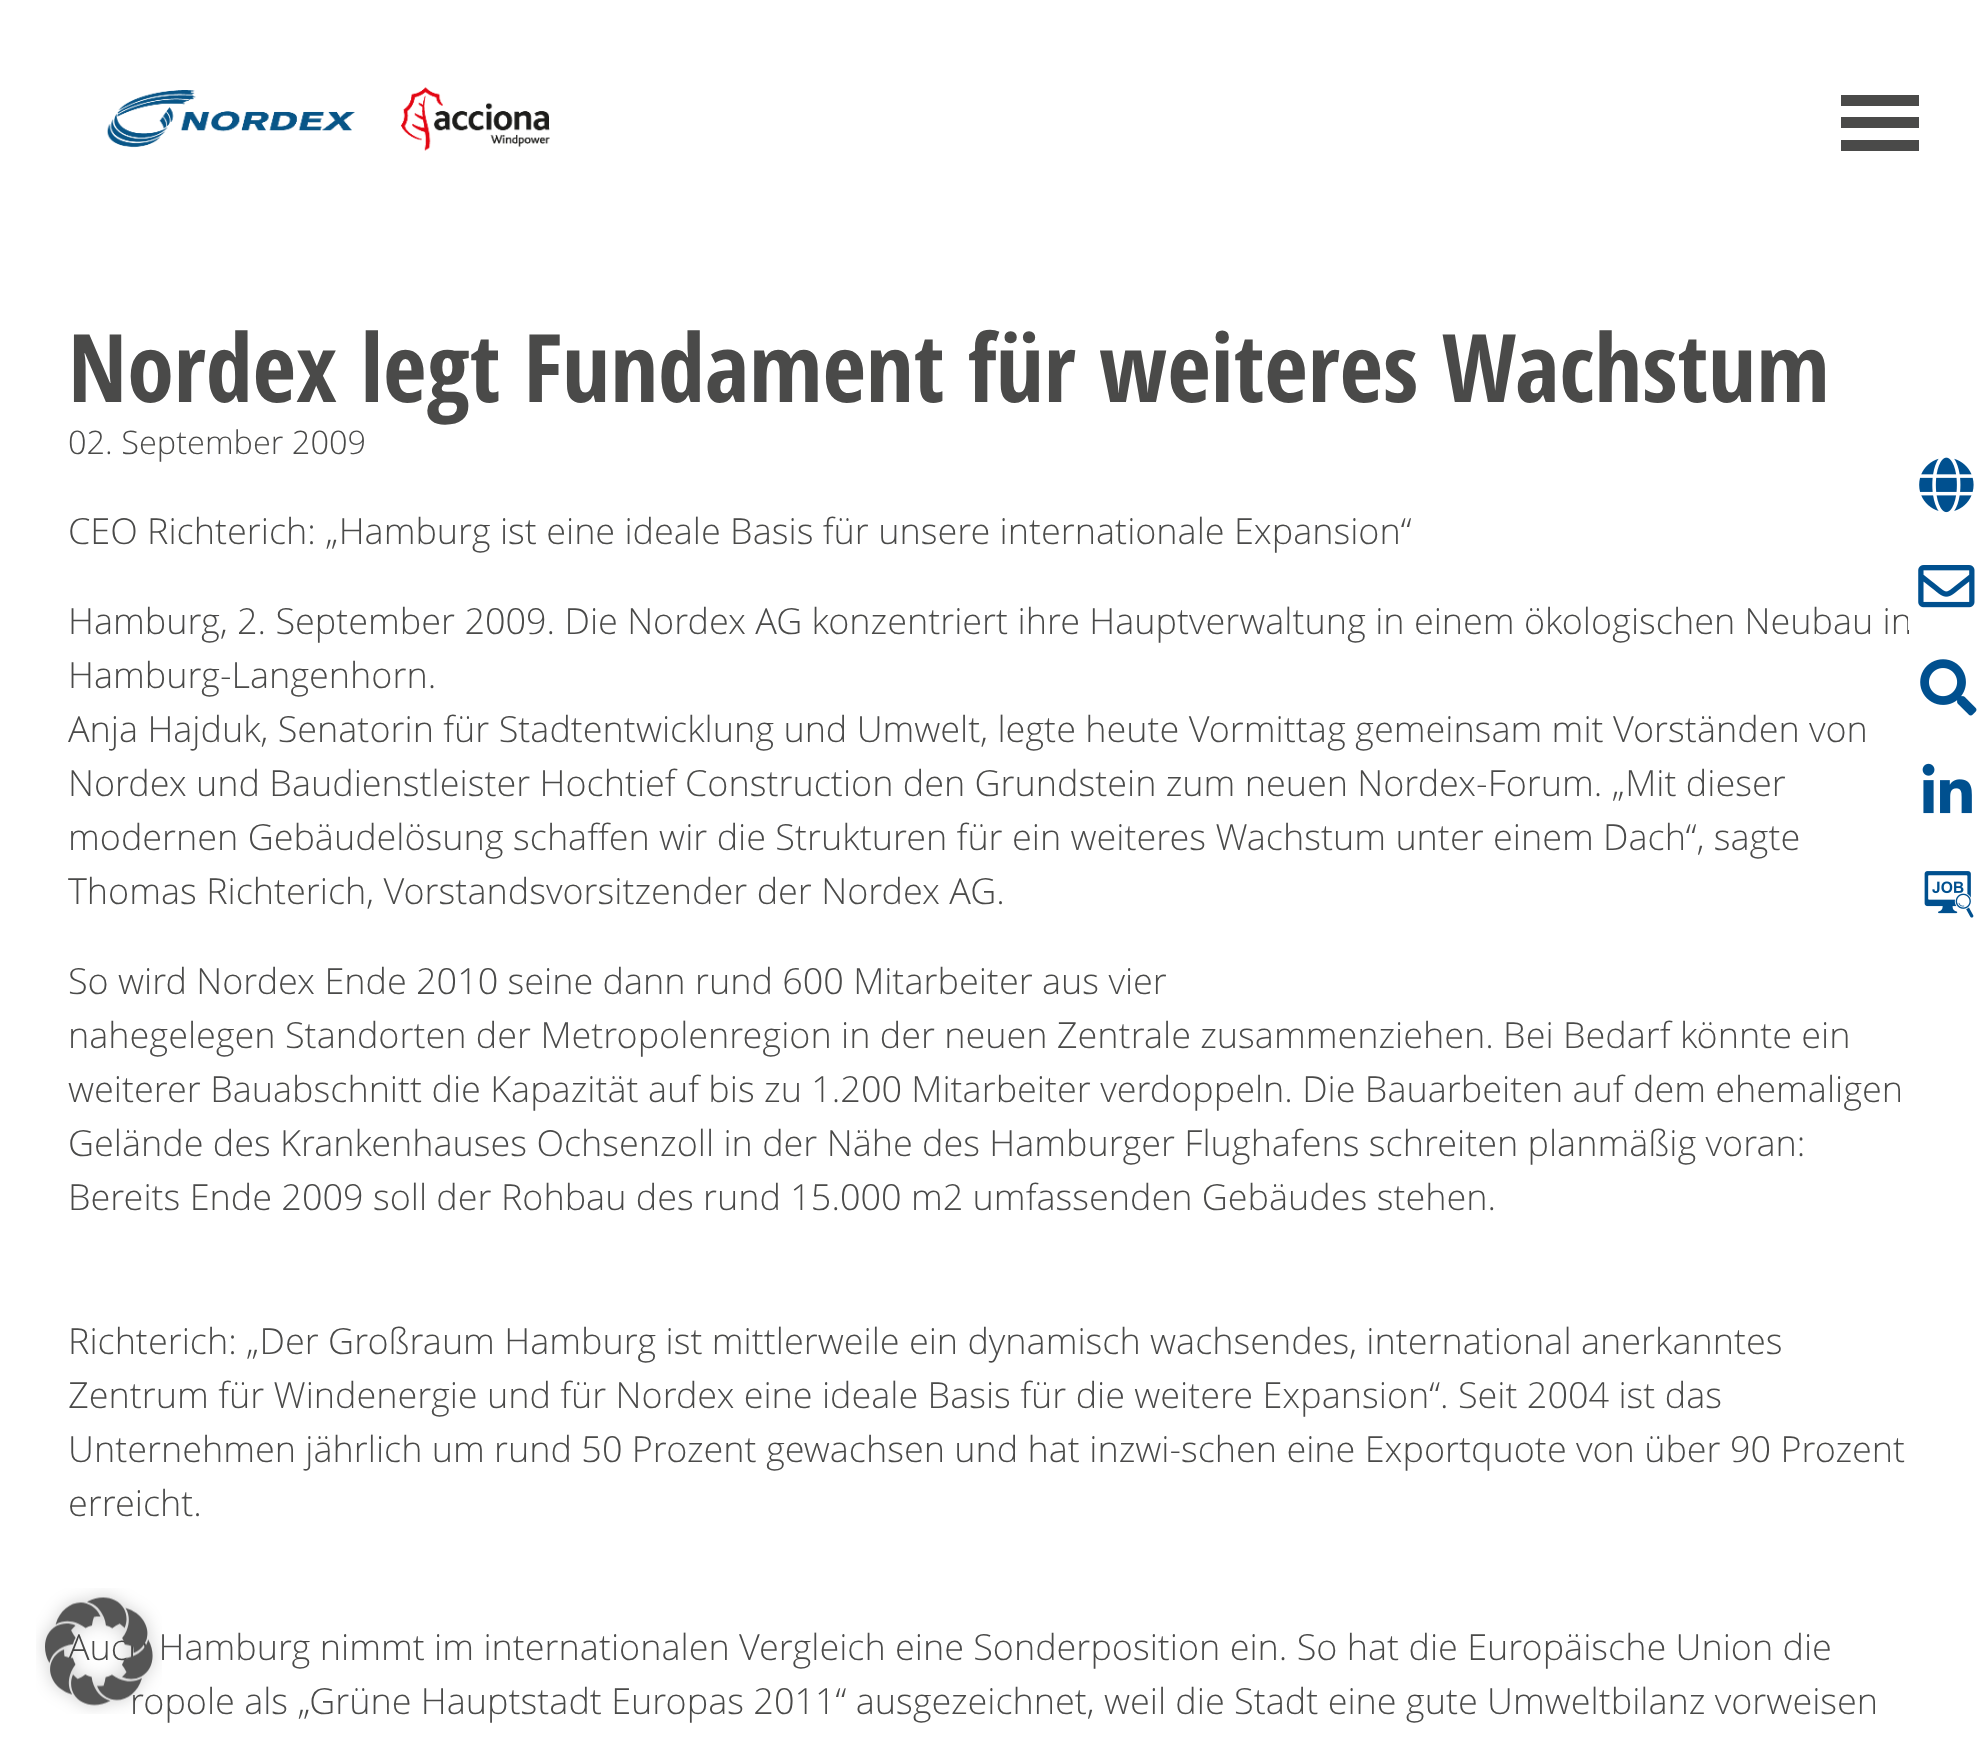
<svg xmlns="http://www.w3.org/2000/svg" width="1985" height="1750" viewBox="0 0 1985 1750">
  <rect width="100%" height="100%" fill="#ffffff"/>
  <image x="107" y="87" width="443" height="64" href="img1.png"/>
  <rect x="1841" y="95" width="78" height="11" fill="#4a4a49"/>
  <rect x="1841" y="117" width="78" height="11" fill="#4a4a49"/>
  <rect x="1841" y="140" width="78" height="11" fill="#4a4a49"/>
  <text x="68" y="402" font-family="Open Sans Condensed" font-size="94.5" font-weight="bold" fill="#4a4a49">Nordex legt Fundament für weiteres Wachstum</text>
  <text x="68" y="454" font-family="Open Sans" font-size="32.5" font-weight="300" fill="#4a4a49">02. September 2009</text>
  <text x="68" y="544" font-family="Open Sans" font-size="36" font-weight="300" fill="#4a4a49">CEO Richterich: „Hamburg ist eine ideale Basis für unsere internationale Expansion“</text>
  <text x="68" y="634" font-family="Open Sans" font-size="36" font-weight="300" fill="#4a4a49">Hamburg, 2. September 2009. Die Nordex AG konzentriert ihre Hauptverwaltung in einem ökologischen Neubau in</text>
  <text x="68" y="688" font-family="Open Sans" font-size="36" font-weight="300" fill="#4a4a49">Hamburg-Langenhorn.</text>
  <text x="68" y="742" font-family="Open Sans" font-size="36" font-weight="300" fill="#4a4a49">Anja Hajduk, Senatorin für Stadtentwicklung und Umwelt, legte heute Vormittag gemeinsam mit Vorständen von</text>
  <text x="68" y="796" font-family="Open Sans" font-size="36" font-weight="300" fill="#4a4a49">Nordex und Baudienstleister Hochtief Construction den Grundstein zum neuen Nordex-Forum. „Mit dieser</text>
  <text x="68" y="850" font-family="Open Sans" font-size="36" font-weight="300" fill="#4a4a49">modernen Gebäudelösung schaffen wir die Strukturen für ein weiteres Wachstum unter einem Dach“, sagte</text>
  <text x="68" y="904" font-family="Open Sans" font-size="36" font-weight="300" fill="#4a4a49">Thomas Richterich, Vorstandsvorsitzender der Nordex AG.</text>
  <text x="68" y="994" font-family="Open Sans" font-size="36" font-weight="300" fill="#4a4a49">So wird Nordex Ende 2010 seine dann rund 600 Mitarbeiter aus vier</text>
  <text x="68" y="1048" font-family="Open Sans" font-size="36" font-weight="300" fill="#4a4a49">nahegelegen Standorten der Metropolenregion in der neuen Zentrale zusammenziehen. Bei Bedarf könnte ein</text>
  <text x="68" y="1102" font-family="Open Sans" font-size="36" font-weight="300" fill="#4a4a49">weiterer Bauabschnitt die Kapazität auf bis zu 1.200 Mitarbeiter verdoppeln. Die Bauarbeiten auf dem ehemaligen</text>
  <text x="68" y="1156" font-family="Open Sans" font-size="36" font-weight="300" fill="#4a4a49">Gelände des Krankenhauses Ochsenzoll in der Nähe des Hamburger Flughafens schreiten planmäßig voran:</text>
  <text x="68" y="1210" font-family="Open Sans" font-size="36" font-weight="300" fill="#4a4a49">Bereits Ende 2009 soll der Rohbau des rund 15.000 m2 umfassenden Gebäudes stehen.</text>
  <text x="68" y="1354" font-family="Open Sans" font-size="36" font-weight="300" fill="#4a4a49">Richterich: „Der Großraum Hamburg ist mittlerweile ein dynamisch wachsendes, international anerkanntes</text>
  <text x="68" y="1408" font-family="Open Sans" font-size="36" font-weight="300" fill="#4a4a49">Zentrum für Windenergie und für Nordex eine ideale Basis für die weitere Expansion“. Seit 2004 ist das</text>
  <text x="68" y="1462" font-family="Open Sans" font-size="36" font-weight="300" fill="#4a4a49">Unternehmen jährlich um rund 50 Prozent gewachsen und hat inzwi-schen eine Exportquote von über 90 Prozent</text>
  <text x="68" y="1516" font-family="Open Sans" font-size="36" font-weight="300" fill="#4a4a49">erreicht.</text>
  <text x="68" y="1660" font-family="Open Sans" font-size="36" font-weight="300" fill="#4a4a49">Auch Hamburg nimmt im internationalen Vergleich eine Sonderposition ein. So hat die Europäische Union die</text>
  <text x="130" y="1714" font-family="Open Sans" font-size="36" font-weight="300" fill="#4a4a49">ropole als „Grüne Hauptstadt Europas 2011“ ausgezeichnet, weil die Stadt eine gute Umweltbilanz vorweisen</text>
  <image x="1919" y="457" width="55" height="56" href="img2.png"/>
  <rect x="1908" y="614" width="6" height="16" fill="#ffffff"/>
  <image x="1918" y="565" width="57" height="43" href="img3.png"/>
  <image x="1920" y="659" width="57" height="57" href="img4.png"/>
  <image x="1922" y="763" width="50" height="51" href="img5.png"/>
  <image x="1924" y="871" width="50" height="47" href="img6.png"/>
  <image x="36" y="1588" width="126" height="126" href="img7.png"/>
</svg>
